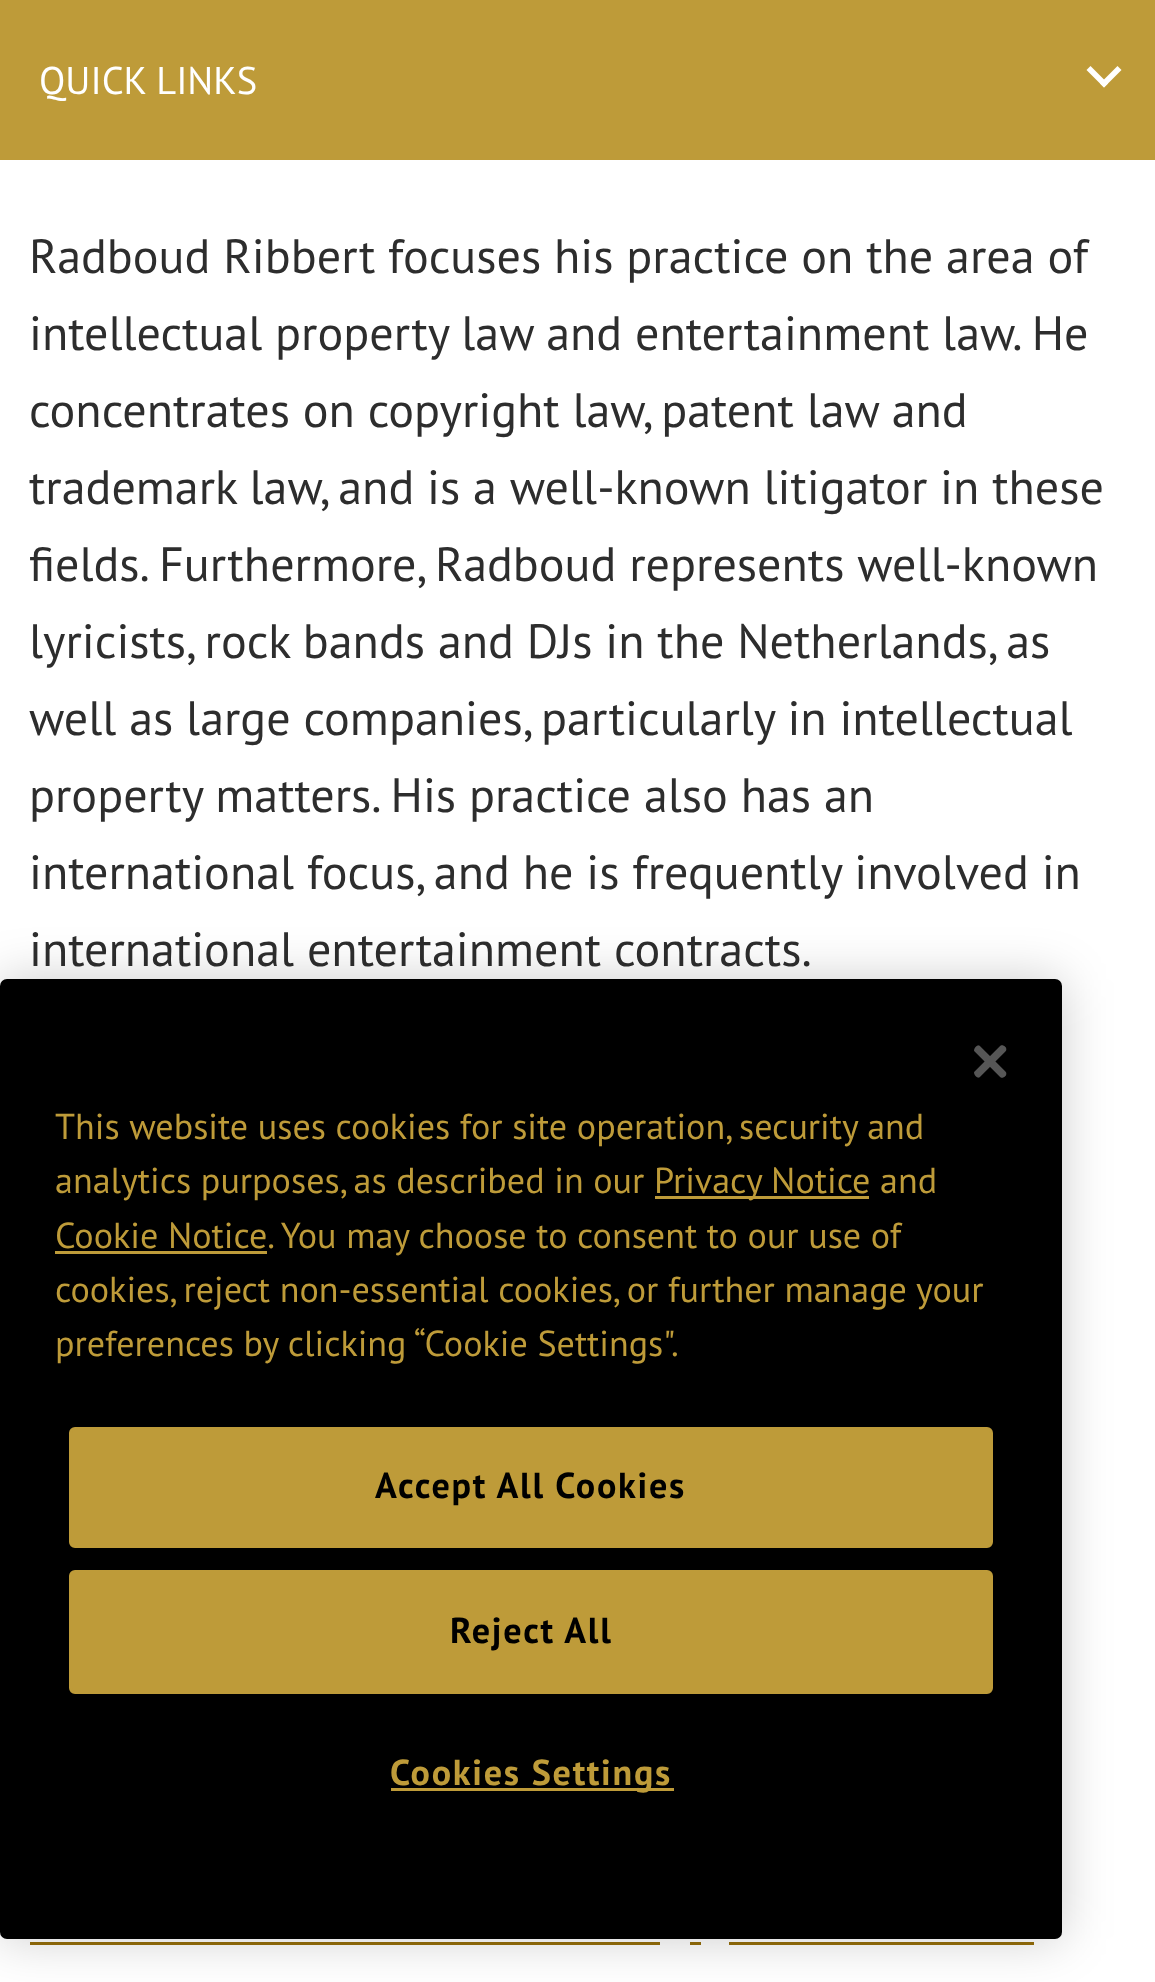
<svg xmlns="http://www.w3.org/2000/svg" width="1155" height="1982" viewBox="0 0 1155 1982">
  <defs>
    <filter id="blur1" x="-50%" y="-200%" width="200%" height="500%"><feGaussianBlur stdDeviation="25"/></filter>
  </defs>
  <rect width="100%" height="100%" fill="#ffffff"/>
  <rect x="0" y="0" width="1155" height="160" fill="#be9b39"/>
  <text x="39" y="94" font-family="PT Sans" font-size="38.5" fill="#ffffff">QUICK LINKS</text>
  <path d="M1117.5 66L1121.5 70L1104 87.5L1100 83.5Z" fill="#ffffff"/>
  <path d="M1090.5 66L1108 83.5L1104 87.5L1086.5 70Z" fill="#ffffff"/>
  <text x="29" y="273" font-family="PT Sans" font-size="48.1" fill="#2d2d2d">Radboud Ribbert focuses his practice on the area of</text>
  <text x="29" y="350" font-family="PT Sans" font-size="48.1" fill="#2d2d2d">intellectual property law and entertainment law. He</text>
  <text x="29" y="427" font-family="PT Sans" font-size="48.1" fill="#2d2d2d">concentrates on copyright law, patent law and</text>
  <text x="29" y="504" font-family="PT Sans" font-size="48.1" fill="#2d2d2d">trademark law, and is a well-known litigator in these</text>
  <text x="29" y="581" font-family="PT Sans" font-size="48.1" fill="#2d2d2d">fields. Furthermore, Radboud represents well-known</text>
  <text x="29" y="658" font-family="PT Sans" font-size="48.1" fill="#2d2d2d">lyricists, rock bands and DJs in the Netherlands, as</text>
  <text x="29" y="735" font-family="PT Sans" font-size="48.1" fill="#2d2d2d">well as large companies, particularly in intellectual</text>
  <text x="29" y="812" font-family="PT Sans" font-size="48.1" fill="#2d2d2d">property matters. His practice also has an</text>
  <text x="29" y="889" font-family="PT Sans" font-size="48.1" fill="#2d2d2d">international focus, and he is frequently involved in</text>
  <text x="29" y="966" font-family="PT Sans" font-size="48.1" fill="#2d2d2d">international entertainment contracts.</text>
  <rect x="30" y="1942" width="630" height="3" fill="#956e0a"/>
  <rect x="690" y="1942" width="11" height="3" fill="#956e0a"/>
  <rect x="729" y="1942" width="305" height="3" fill="#956e0a"/>
  <rect x="0" y="979" width="1062" height="960" rx="7" fill="#000000" fill-opacity="0.2" filter="url(#blur1)"/>
  <rect x="0" y="979" width="1062" height="960" rx="7" fill="#000000"/>
  <image x="974" y="1045" width="33" height="33" href="img1.png"/>
  <text x="55" y="1139" font-family="PT Sans" font-size="36.1" fill="#be9b39">This website uses cookies for site operation, security and</text>
  <text x="55" y="1193" font-family="PT Sans" font-size="36.1" fill="#be9b39">analytics purposes, as described in our</text>
  <rect x="655" y="1196" width="214" height="3" fill="#be9b39"/>
  <text x="654" y="1193" font-family="PT Sans" font-size="36.1" fill="#be9b39">Privacy Notice and</text>
  <rect x="55" y="1251" width="212" height="3" fill="#be9b39"/>
  <text x="55" y="1248" font-family="PT Sans" font-size="36.1" fill="#be9b39">Cookie Notice. You may choose to consent to our use of</text>
  <text x="55" y="1302" font-family="PT Sans" font-size="36.1" fill="#be9b39">cookies, reject non-essential cookies, or further manage your</text>
  <text x="55" y="1356" font-family="PT Sans" font-size="36.1" fill="#be9b39">preferences by clicking “Cookie Settings".</text>
  <rect x="70.5" y="1428.5" width="921" height="118" rx="4.5" fill="#be9b39" stroke="#be9b39" stroke-width="3"/>
  <text x="375" y="1498" font-family="PT Sans" font-size="36.1" font-weight="bold" letter-spacing="1.75" fill="#000000">Accept All Cookies</text>
  <rect x="70.5" y="1571.5" width="921" height="121" rx="4.5" fill="#be9b39" stroke="#be9b39" stroke-width="3"/>
  <text x="450" y="1643" font-family="PT Sans" font-size="36.1" font-weight="bold" letter-spacing="1.75" fill="#000000">Reject All</text>
  <rect x="391" y="1788" width="283" height="3" fill="#be9b39"/>
  <text x="390" y="1785" font-family="PT Sans" font-size="36.1" font-weight="bold" letter-spacing="1.75" fill="#be9b39">Cookies Settings</text>
</svg>
